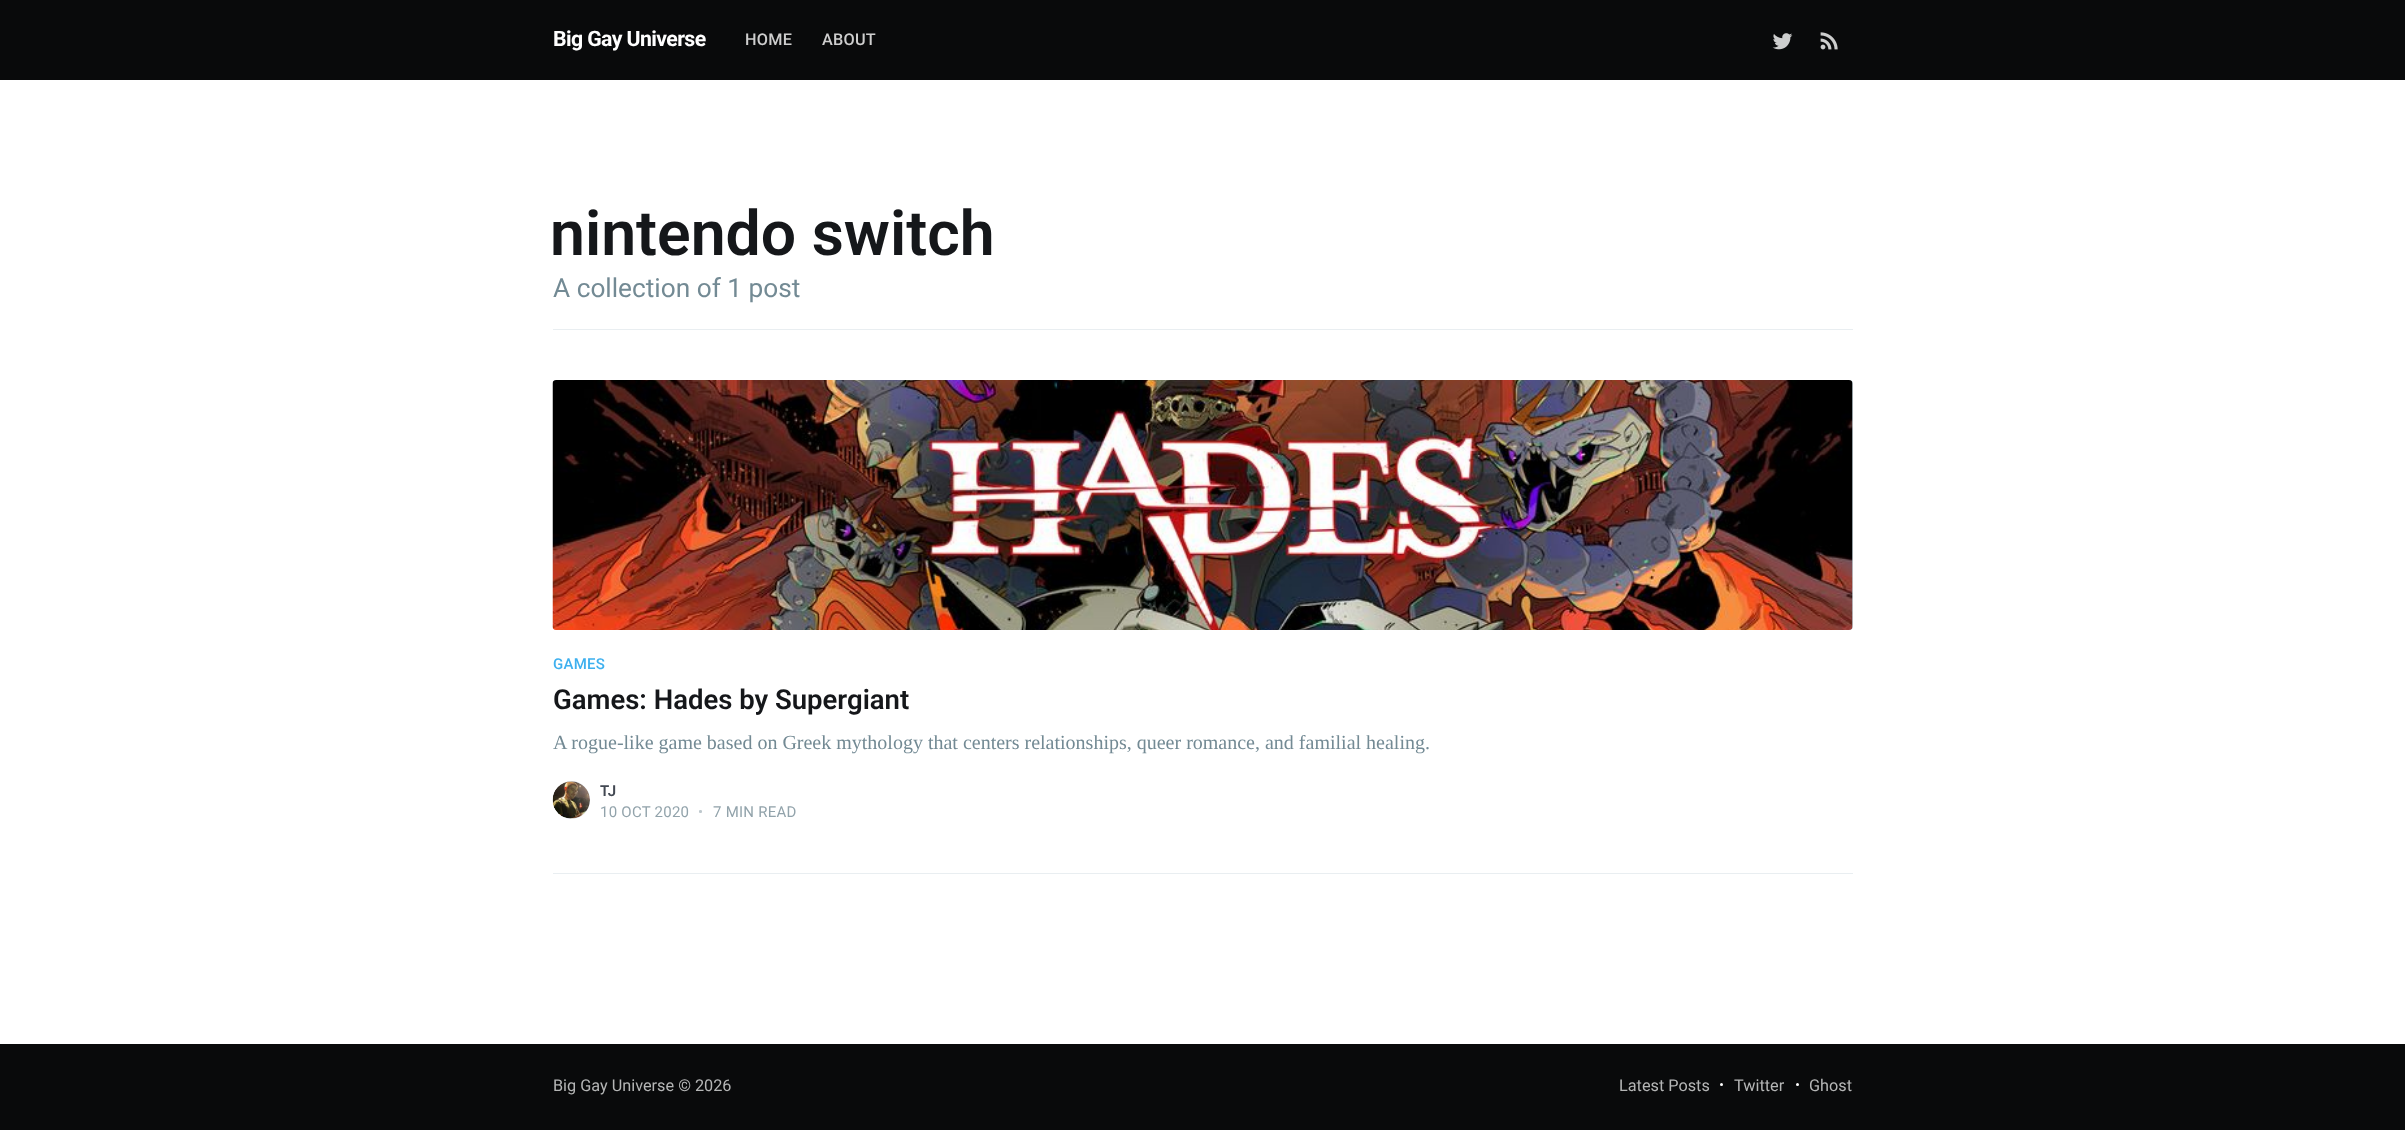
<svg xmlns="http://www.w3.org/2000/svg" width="2405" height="1130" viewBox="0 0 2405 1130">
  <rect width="100%" height="100%" fill="#ffffff"/>
  <rect x="0" y="0" width="2405" height="80" fill="#090a0b"/>
  <text x="553" y="46" font-family="Roboto" font-size="21.25" font-weight="bold" letter-spacing="-0.6" fill="#ffffff">Big Gay Universe</text>
  <text x="745" y="45" font-family="Roboto" font-size="16.25" font-weight="500" letter-spacing="0.25" fill="#cecece">HOME</text>
  <text x="822" y="45" font-family="Roboto" font-size="16.25" font-weight="500" letter-spacing="0.25" fill="#cecece">ABOUT</text>
  <image x="1772" y="33" width="21" height="17" href="img1.png"/>
  <image x="1820" y="32" width="18" height="18" href="img2.png"/>
  <rect x="553" y="329" width="1300" height="1" fill="#e9eef1"/>
  <text x="550" y="255" font-family="Roboto" font-size="62.5" font-weight="600" fill="#15171a">nintendo switch</text>
  <text x="553" y="297" font-family="Roboto" font-size="26.25" fill="#738a94">A collection of 1 post</text>
  <rect x="553" y="873" width="1300" height="1" fill="#e9eef1"/>
  <rect x="553" y="380" width="1300" height="250" rx="4" fill="#c5d2d9"/>
  <image x="552" y="380" width="1301" height="250" href="img3.png"/>
  <text x="553" y="669" font-family="Roboto" font-size="15" font-weight="500" letter-spacing="0.25" fill="#3eb0ef">GAMES</text>
  <text x="553" y="709" font-family="Roboto" font-size="27.5" font-weight="600" fill="#15171a">Games: Hades by Supergiant</text>
  <text x="553" y="749" font-family="Liberation Serif" font-size="20" fill="#738a94">A rogue-like game based on Greek mythology that centers relationships, queer romance, and familial healing.</text>
  <rect x="553" y="781" width="37" height="38" rx="18.5" fill="#e3e9ed"/>
  <image x="552" y="781" width="38" height="38" href="img4.png"/>
  <text x="600" y="796" font-family="Roboto" font-size="15" font-weight="600" letter-spacing="0.25" fill="#424852">TJ</text>
  <text x="600" y="817" font-family="Roboto" font-size="15" letter-spacing="0.25" fill="#92a3ab">10 OCT 2020</text>
  <text x="698" y="817" font-family="Roboto" font-size="15" letter-spacing="0.25" fill="#bec8cd">•</text>
  <text x="713" y="817" font-family="Roboto" font-size="15" letter-spacing="0.25" fill="#92a3ab">7 MIN READ</text>
  <rect x="0" y="1044" width="2405" height="86" fill="#090a0b"/>
  <text x="553" y="1091" font-family="Roboto" font-size="16.25" fill="#b5b6b6">Big Gay Universe © 2026</text>
  <text x="1619" y="1091" font-family="Roboto" font-size="16.25" fill="#b5b6b6">Latest Posts</text>
  <circle cx="1721.5" cy="1084.5" r="1.5" fill="#ffffff"/>
  <text x="1734" y="1091" font-family="Roboto" font-size="16.25" fill="#b5b6b6">Twitter</text>
  <circle cx="1797.5" cy="1084.5" r="1.5" fill="#ffffff"/>
  <text x="1809" y="1091" font-family="Roboto" font-size="16.25" fill="#b5b6b6">Ghost</text>
</svg>
